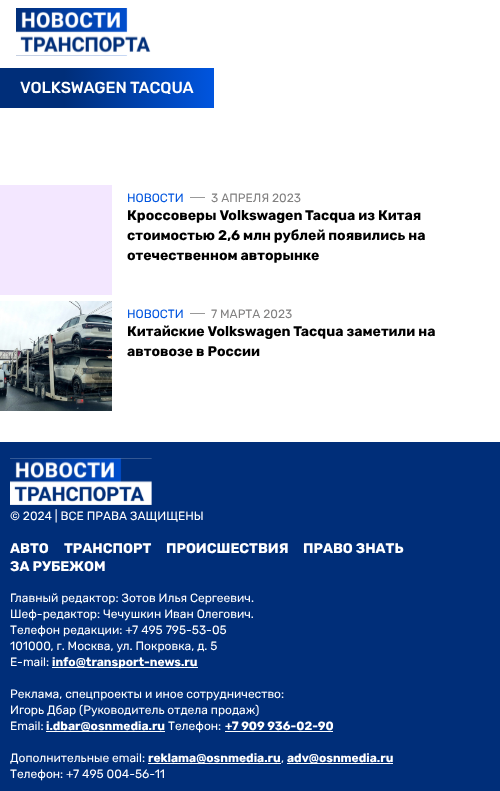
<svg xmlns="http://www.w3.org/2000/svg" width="500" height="791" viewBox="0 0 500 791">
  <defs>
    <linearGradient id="g1" gradientUnits="userSpaceOnUse" x1="0" y1="88" x2="214" y2="88"><stop offset="0.3" stop-color="#002e79"/><stop offset="1" stop-color="#0055df"/></linearGradient>
  </defs>
  <rect width="100%" height="100%" fill="#ffffff"/>
  <image x="16" y="8" width="135" height="48" href="img1.png"/>
  <rect x="0" y="68" width="214" height="40" fill="url(#g1)"/>
  <text x="20" y="93" font-family="Rubik" font-size="16" font-weight="500" fill="#ffffff">VOLKSWAGEN TACQUA</text>
  <rect x="0" y="185" width="112" height="110" fill="#f3e7ff"/>
  <text x="127" y="202" font-family="Rubik" font-size="12" fill="#0055df">НОВОСТИ</text>
  <rect x="190" y="197" width="15" height="1" fill="#999999"/>
  <text x="211" y="202" font-family="Rubik" font-size="12" fill="#828181">3 АПРЕЛЯ 2023</text>
  <text x="127" y="220" font-family="Rubik" font-size="14" font-weight="bold" fill="#000000">Кроссоверы Volkswagen Tacqua из Китая</text>
  <text x="127" y="240" font-family="Rubik" font-size="14" font-weight="bold" fill="#000000">стоимостью 2,6 млн рублей появились на</text>
  <text x="127" y="260" font-family="Rubik" font-size="14" font-weight="bold" fill="#000000">отечественном авторынке</text>
  <image x="0" y="301" width="112" height="110" href="img2.png"/>
  <text x="127" y="318" font-family="Rubik" font-size="12" fill="#0055df">НОВОСТИ</text>
  <rect x="190" y="313" width="15" height="1" fill="#999999"/>
  <text x="211" y="318" font-family="Rubik" font-size="12" fill="#828181">7 МАРТА 2023</text>
  <text x="127" y="336" font-family="Rubik" font-size="14" font-weight="bold" fill="#000000">Китайские Volkswagen Tacqua заметили на</text>
  <text x="127" y="356" font-family="Rubik" font-size="14" font-weight="bold" fill="#000000">автовозе в России</text>
  <rect x="0" y="442" width="500" height="349" fill="#002e79"/>
  <image x="10" y="458" width="142" height="47" href="img3.png"/>
  <text x="10" y="520" font-family="Rubik" font-size="12" fill="#ffffff">© 2024 | ВСЕ ПРАВА ЗАЩИЩЕНЫ</text>
  <text x="10" y="553" font-family="Rubik" font-size="14" font-weight="bold" fill="#ffffff">АВТО</text>
  <text x="64" y="553" font-family="Rubik" font-size="14" font-weight="bold" fill="#ffffff">ТРАНСПОРТ</text>
  <text x="166" y="553" font-family="Rubik" font-size="14" font-weight="bold" fill="#ffffff">ПРОИСШЕСТВИЯ</text>
  <text x="303" y="553" font-family="Rubik" font-size="14" font-weight="bold" fill="#ffffff">ПРАВО ЗНАТЬ</text>
  <text x="10" y="571" font-family="Rubik" font-size="14" font-weight="bold" fill="#ffffff">ЗА РУБЕЖОМ</text>
  <text x="10" y="602" font-family="Rubik" font-size="12" fill="#ffffff">Главный редактор: Зотов Илья Сергеевич.</text>
  <text x="10" y="618" font-family="Rubik" font-size="12" fill="#ffffff">Шеф-редактор: Чечушкин Иван Олегович.</text>
  <text x="10" y="634" font-family="Rubik" font-size="12" fill="#ffffff">Телефон редакции: +7 495 795-53-05</text>
  <text x="10" y="650" font-family="Rubik" font-size="12" fill="#ffffff">101000, г. Москва, ул. Покровка, д. 5</text>
  <text x="10" y="666" font-family="Rubik" font-size="12" fill="#ffffff">E-mail:</text>
  <rect x="52" y="667" width="146" height="1" fill="#ffffff"/>
  <text x="52" y="666" font-family="Rubik" font-size="12" font-weight="bold" fill="#ffffff">info@transport-news.ru</text>
  <text x="10" y="698" font-family="Rubik" font-size="12" fill="#ffffff">Реклама, спецпроекты и иное сотрудничество:</text>
  <text x="10" y="714" font-family="Rubik" font-size="12" fill="#ffffff">Игорь Дбар (Руководитель отдела продаж)</text>
  <text x="10" y="730" font-family="Rubik" font-size="12" fill="#ffffff">Email:</text>
  <rect x="46" y="731" width="119" height="1" fill="#ffffff"/>
  <text x="46" y="730" font-family="Rubik" font-size="12" font-weight="bold" fill="#ffffff">i.dbar@osnmedia.ru</text>
  <text x="168" y="730" font-family="Rubik" font-size="12" fill="#ffffff">Телефон:</text>
  <text x="225" y="730" font-family="Rubik" font-size="12" font-weight="bold" fill="#ffffff">+7 909 936-02-90</text>
  <rect x="225" y="731" width="108" height="1" fill="#ffffff"/>
  <text x="10" y="762" font-family="Rubik" font-size="12" fill="#ffffff">Дополнительные email:</text>
  <rect x="148" y="763" width="133" height="1" fill="#ffffff"/>
  <text x="148" y="762" font-family="Rubik" font-size="12" font-weight="bold" fill="#ffffff">reklama@osnmedia.ru</text>
  <text x="281" y="762" font-family="Rubik" font-size="12" fill="#ffffff">,</text>
  <rect x="287" y="763" width="106" height="1" fill="#ffffff"/>
  <text x="287" y="762" font-family="Rubik" font-size="12" font-weight="bold" fill="#ffffff">adv@osnmedia.ru</text>
  <text x="10" y="778" font-family="Rubik" font-size="12" fill="#ffffff">Телефон: +7 495 004-56-11</text>
</svg>
